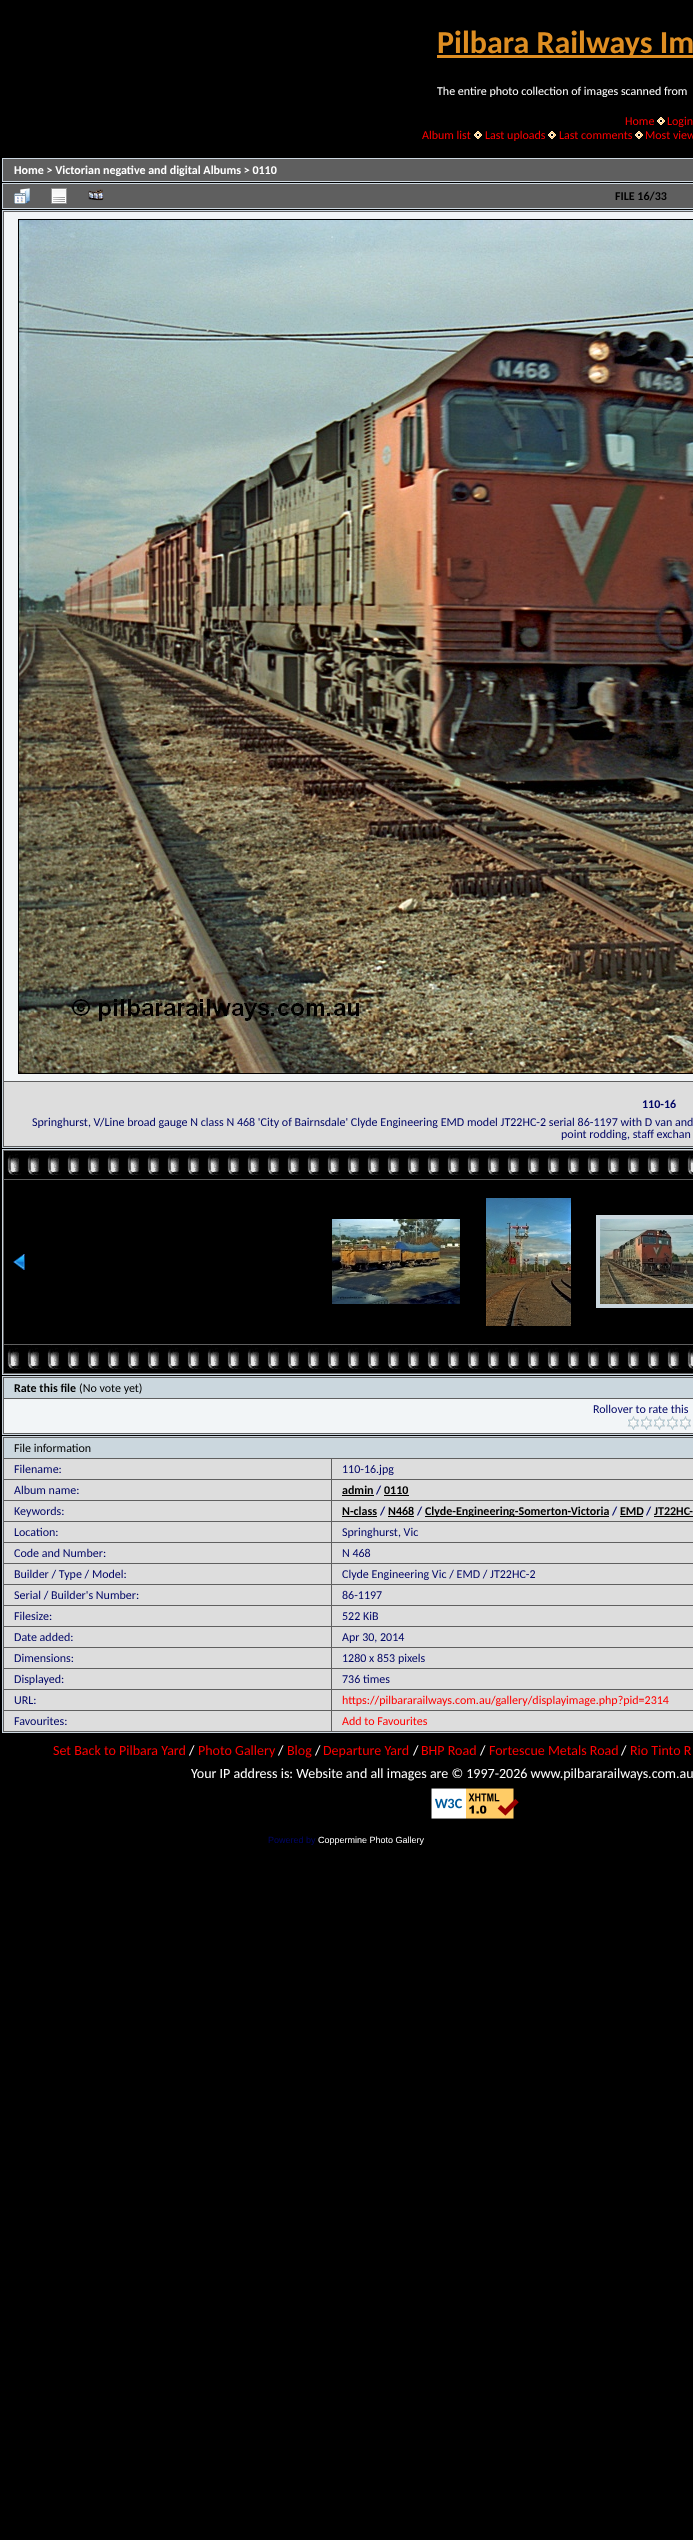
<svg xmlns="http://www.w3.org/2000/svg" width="693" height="2540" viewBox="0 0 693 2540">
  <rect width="100%" height="100%" fill="#000000"/>
  <rect x="437" y="55" width="256" height="3" fill="#df8e22"/>
  <text x="437" y="53" font-family="Carlito" font-size="32" font-weight="bold" fill="#df8e22">Pilbara Railways Im</text>
  <text x="437" y="95" font-family="Carlito" font-size="12" fill="#ffffff">The entire photo collection of images scanned from</text>
  <text x="625" y="125" font-family="Carlito" font-size="12" fill="#ff0000">Home</text>
  <image x="657" y="117" width="8" height="8" href="img1.png"/>
  <text x="667" y="125" font-family="Carlito" font-size="12" fill="#ff0000">Login</text>
  <text x="422" y="139" font-family="Carlito" font-size="12" fill="#ff0000">Album list</text>
  <image x="474" y="131" width="8" height="8" href="img1.png"/>
  <text x="485" y="139" font-family="Carlito" font-size="12" fill="#ff0000">Last uploads</text>
  <image x="548" y="131" width="8" height="8" href="img1.png"/>
  <text x="559" y="139" font-family="Carlito" font-size="12" fill="#ff0000">Last comments</text>
  <image x="635" y="131" width="8" height="8" href="img1.png"/>
  <text x="645" y="139" font-family="Carlito" font-size="12" fill="#ff0000">Most view</text>
  <rect x="2.5" y="158.5" width="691" height="23" fill="#5f5f5f" stroke="#ccd7e0"/>
  <text x="14" y="174" font-family="Carlito" font-size="12" font-weight="bold" fill="#ffffff">Home &gt; Victorian negative and digital Albums &gt; 0110</text>
  <rect x="2.5" y="183.5" width="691" height="25" fill="#5f5f5f" stroke="#ccd7e0"/>
  <image x="14" y="188" width="16" height="16" href="img2.png"/>
  <image x="51" y="188" width="16" height="16" href="img3.png"/>
  <image x="88" y="189" width="16" height="12" href="img4.png"/>
  <text x="615" y="200" font-family="Carlito" font-size="12" font-weight="bold" fill="#000000">FILE 16/33</text>
  <rect x="2.5" y="210.5" width="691" height="937" fill="#5f5f5f" stroke="#ccd7e0"/>
  <rect x="4" y="212" width="689" height="869" fill="#f2f5f7"/>
  <rect x="18.5" y="219.5" width="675" height="854" fill="none" stroke="#000000"/>
  <image x="19" y="220" width="674" height="853" href="img5.png"/>
  <rect x="4" y="1082" width="689" height="64" fill="#dddddd"/>
  <text x="642" y="1108" font-family="Carlito" font-size="12" font-weight="bold" fill="#000666">110-16</text>
  <text x="32" y="1126" font-family="Carlito" font-size="12" fill="#000666">Springhurst, V/Line broad gauge N class N 468 'City of Bairnsdale' Clyde Engineering EMD model JT22HC-2 serial 86-1197 with D van and</text>
  <text x="561" y="1138" font-family="Carlito" font-size="12" fill="#000666">point rodding, staff exchan</text>
  <rect x="2.5" y="1149.5" width="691" height="225" fill="#5f5f5f" stroke="#ccd7e0"/>
  <rect x="4" y="1151" width="689" height="28" fill="#000000"/>
  <image x="7" y="1151" width="686" height="24" href="img6.png"/>
  <rect x="4" y="1180" width="689" height="164" fill="#000000"/>
  <image x="13" y="1254" width="12" height="16" href="img7.png"/>
  <image x="332" y="1219" width="128" height="85" href="img8.png"/>
  <image x="486" y="1198" width="85" height="128" href="img9.png"/>
  <rect x="598" y="1217" width="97" height="89" fill="none" stroke="#cbd7de" stroke-width="4"/>
  <image x="600" y="1219" width="93" height="85" href="img10.png"/>
  <rect x="4" y="1345" width="689" height="28" fill="#000000"/>
  <image x="7" y="1345" width="686" height="24" href="img6.png"/>
  <rect x="2.5" y="1376.5" width="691" height="58" fill="#5f5f5f" stroke="#ccd7e0"/>
  <rect x="4" y="1378" width="689" height="20" fill="#cbd7de"/>
  <text x="14" y="1392" font-family="Carlito" font-size="12" font-weight="bold" fill="#000000">Rate this file</text>
  <text x="79" y="1392" font-family="Carlito" font-size="12" fill="#000000">(No vote yet)</text>
  <rect x="4" y="1399" width="689" height="34" fill="#f2f5f7"/>
  <text x="593" y="1413" font-family="Carlito" font-size="12" fill="#000666">Rollover to rate this</text>
  <image x="627" y="1416" width="13" height="14" href="img11.png"/>
  <image x="640" y="1416" width="13" height="14" href="img11.png"/>
  <image x="653" y="1416" width="13" height="14" href="img11.png"/>
  <image x="666" y="1416" width="13" height="14" href="img11.png"/>
  <image x="679" y="1416" width="13" height="14" href="img11.png"/>
  <rect x="2.5" y="1436.5" width="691" height="296" fill="#5f5f5f" stroke="#ccd7e0"/>
  <rect x="4" y="1438" width="689" height="20" fill="#cbd7de"/>
  <text x="14" y="1452" font-family="Carlito" font-size="12" fill="#000000">File information</text>
  <rect x="4" y="1459" width="327" height="20" fill="#dddddd"/>
  <text x="14" y="1473" font-family="Carlito" font-size="12" fill="#000666">Filename:</text>
  <rect x="332" y="1459" width="361" height="20" fill="#dddddd"/>
  <text x="342" y="1473" font-family="Carlito" font-size="12" fill="#000666">110-16.jpg</text>
  <rect x="4" y="1480" width="327" height="20" fill="#dddddd"/>
  <text x="14" y="1494" font-family="Carlito" font-size="12" fill="#000666">Album name:</text>
  <rect x="332" y="1480" width="361" height="20" fill="#dddddd"/>
  <text x="342" y="1494" font-family="Carlito" font-size="12" font-weight="bold" fill="#000000">admin</text>
  <rect x="342" y="1495" width="32" height="1" fill="#000000"/>
  <text x="376" y="1494" font-family="Carlito" font-size="12" font-weight="bold" fill="#000666">/</text>
  <text x="384" y="1494" font-family="Carlito" font-size="12" font-weight="bold" fill="#000000">0110</text>
  <rect x="384" y="1495" width="25" height="1" fill="#000000"/>
  <rect x="4" y="1501" width="327" height="20" fill="#dddddd"/>
  <text x="14" y="1515" font-family="Carlito" font-size="12" fill="#000666">Keywords:</text>
  <rect x="332" y="1501" width="361" height="20" fill="#dddddd"/>
  <text x="342" y="1515" font-family="Carlito" font-size="12" font-weight="bold" fill="#000000">N-class</text>
  <rect x="342" y="1516" width="35" height="1" fill="#000000"/>
  <text x="380" y="1515" font-family="Carlito" font-size="12" font-weight="bold" fill="#000666">/</text>
  <text x="388" y="1515" font-family="Carlito" font-size="12" font-weight="bold" fill="#000000">N468</text>
  <rect x="388" y="1516" width="26" height="1" fill="#000000"/>
  <text x="417" y="1515" font-family="Carlito" font-size="12" font-weight="bold" fill="#000666">/</text>
  <rect x="425" y="1516" width="184" height="1" fill="#000000"/>
  <text x="425" y="1515" font-family="Carlito" font-size="12" font-weight="bold" fill="#000000">Clyde-Engineering-Somerton-Victoria</text>
  <text x="612" y="1515" font-family="Carlito" font-size="12" font-weight="bold" fill="#000666">/</text>
  <text x="620" y="1515" font-family="Carlito" font-size="12" font-weight="bold" fill="#000000">EMD</text>
  <rect x="620" y="1516" width="23" height="1" fill="#000000"/>
  <text x="646" y="1515" font-family="Carlito" font-size="12" font-weight="bold" fill="#000666">/</text>
  <text x="654" y="1515" font-family="Carlito" font-size="12" font-weight="bold" fill="#000000">JT22HC-</text>
  <rect x="654" y="1516" width="39" height="1" fill="#000000"/>
  <rect x="4" y="1522" width="327" height="20" fill="#dddddd"/>
  <text x="14" y="1536" font-family="Carlito" font-size="12" fill="#000666">Location:</text>
  <rect x="332" y="1522" width="361" height="20" fill="#dddddd"/>
  <text x="342" y="1536" font-family="Carlito" font-size="12" fill="#000666">Springhurst, Vic</text>
  <rect x="4" y="1543" width="327" height="20" fill="#dddddd"/>
  <text x="14" y="1557" font-family="Carlito" font-size="12" fill="#000666">Code and Number:</text>
  <rect x="332" y="1543" width="361" height="20" fill="#dddddd"/>
  <text x="342" y="1557" font-family="Carlito" font-size="12" fill="#000666">N 468</text>
  <rect x="4" y="1564" width="327" height="20" fill="#dddddd"/>
  <text x="14" y="1578" font-family="Carlito" font-size="12" fill="#000666">Builder / Type / Model:</text>
  <rect x="332" y="1564" width="361" height="20" fill="#dddddd"/>
  <text x="342" y="1578" font-family="Carlito" font-size="12" fill="#000666">Clyde Engineering Vic / EMD / JT22HC-2</text>
  <rect x="4" y="1585" width="327" height="20" fill="#dddddd"/>
  <text x="14" y="1599" font-family="Carlito" font-size="12" fill="#000666">Serial / Builder's Number:</text>
  <rect x="332" y="1585" width="361" height="20" fill="#dddddd"/>
  <text x="342" y="1599" font-family="Carlito" font-size="12" fill="#000666">86-1197</text>
  <rect x="4" y="1606" width="327" height="20" fill="#dddddd"/>
  <text x="14" y="1620" font-family="Carlito" font-size="12" fill="#000666">Filesize:</text>
  <rect x="332" y="1606" width="361" height="20" fill="#dddddd"/>
  <text x="342" y="1620" font-family="Carlito" font-size="12" fill="#000666">522 KiB</text>
  <rect x="4" y="1627" width="327" height="20" fill="#dddddd"/>
  <text x="14" y="1641" font-family="Carlito" font-size="12" fill="#000666">Date added:</text>
  <rect x="332" y="1627" width="361" height="20" fill="#dddddd"/>
  <text x="342" y="1641" font-family="Carlito" font-size="12" fill="#000666">Apr 30, 2014</text>
  <rect x="4" y="1648" width="327" height="20" fill="#dddddd"/>
  <text x="14" y="1662" font-family="Carlito" font-size="12" fill="#000666">Dimensions:</text>
  <rect x="332" y="1648" width="361" height="20" fill="#dddddd"/>
  <text x="342" y="1662" font-family="Carlito" font-size="12" fill="#000666">1280 x 853 pixels</text>
  <rect x="4" y="1669" width="327" height="20" fill="#dddddd"/>
  <text x="14" y="1683" font-family="Carlito" font-size="12" fill="#000666">Displayed:</text>
  <rect x="332" y="1669" width="361" height="20" fill="#dddddd"/>
  <text x="342" y="1683" font-family="Carlito" font-size="12" fill="#000666">736 times</text>
  <rect x="4" y="1690" width="327" height="20" fill="#dddddd"/>
  <text x="14" y="1704" font-family="Carlito" font-size="12" fill="#000666">URL:</text>
  <rect x="332" y="1690" width="361" height="20" fill="#dddddd"/>
  <text x="342" y="1704" font-family="Carlito" font-size="12" fill="#ff0000">https://pilbararailways.com.au/gallery/displayimage.php?pid=2314</text>
  <rect x="4" y="1711" width="327" height="20" fill="#dddddd"/>
  <text x="14" y="1725" font-family="Carlito" font-size="12" fill="#000666">Favourites:</text>
  <rect x="332" y="1711" width="361" height="20" fill="#dddddd"/>
  <text x="342" y="1725" font-family="Carlito" font-size="12" fill="#ff0000">Add to Favourites</text>
  <text x="53" y="1755" font-family="Carlito" font-size="14" fill="#ff0000">Set Back to Pilbara Yard</text>
  <text x="189" y="1755" font-family="Carlito" font-size="14" fill="#ffffff">/</text>
  <text x="198" y="1755" font-family="Carlito" font-size="14" fill="#ff0000">Photo Gallery</text>
  <text x="278" y="1755" font-family="Carlito" font-size="14" fill="#ffffff">/</text>
  <text x="287" y="1755" font-family="Carlito" font-size="14" fill="#ff0000">Blog</text>
  <text x="315" y="1755" font-family="Carlito" font-size="14" fill="#ffffff">/</text>
  <text x="323" y="1755" font-family="Carlito" font-size="14" fill="#ff0000">Departure Yard</text>
  <text x="413" y="1755" font-family="Carlito" font-size="14" fill="#ffffff">/</text>
  <text x="421" y="1755" font-family="Carlito" font-size="14" fill="#ff0000">BHP Road</text>
  <text x="480" y="1755" font-family="Carlito" font-size="14" fill="#ffffff">/</text>
  <text x="489" y="1755" font-family="Carlito" font-size="14" fill="#ff0000">Fortescue Metals Road</text>
  <text x="621" y="1755" font-family="Carlito" font-size="14" fill="#ffffff">/</text>
  <text x="630" y="1755" font-family="Carlito" font-size="14" fill="#ff0000">Rio Tinto R</text>
  <text x="191" y="1778" font-family="Carlito" font-size="14" fill="#ffffff">Your IP address is: Website and all images are © 1997-2026 www.pilbararailways.com.au</text>
  <image x="431" y="1788" width="88" height="31" href="img12.png"/>
  <text x="268" y="1843" font-family="Liberation Sans" font-size="9" fill="#000666">Powered by</text>
  <text x="318" y="1843" font-family="Liberation Sans" font-size="9" fill="#ffffff">Coppermine Photo Gallery</text>
</svg>
